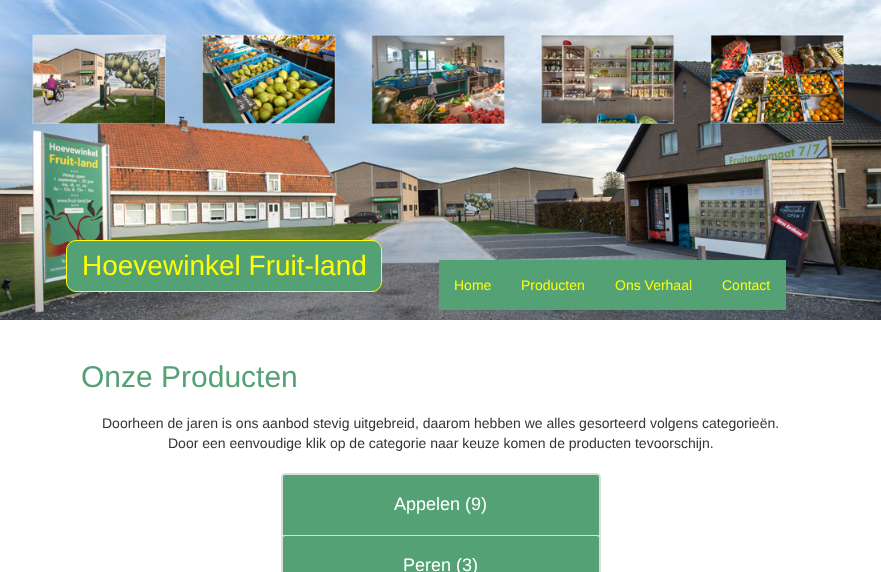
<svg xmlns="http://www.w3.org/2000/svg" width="881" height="572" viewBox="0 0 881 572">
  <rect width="100%" height="100%" fill="#ffffff"/>
  <image x="0" y="0" width="881" height="320" href="img1.png"/>
  <rect x="66.5" y="240.5" width="315" height="51" rx="9.5" fill="#54a175" stroke="#ffff00"/>
  <text x="82" y="275" font-family="Liberation Sans" font-size="28" fill="#ffff00">Hoevewinkel Fruit-land</text>
  <rect x="439" y="260" width="347" height="50" fill="#54a175"/>
  <text x="454" y="290" font-family="Liberation Sans" font-size="14" fill="#ffff00">Home</text>
  <text x="521" y="290" font-family="Liberation Sans" font-size="14" fill="#ffff00">Producten</text>
  <text x="615" y="290" font-family="Liberation Sans" font-size="14" fill="#ffff00">Ons Verhaal</text>
  <text x="722" y="290" font-family="Liberation Sans" font-size="14" fill="#ffff00">Contact</text>
  <text x="81" y="387" font-family="Liberation Sans" font-size="30" fill="#54a175">Onze Producten</text>
  <text x="102" y="428" font-family="Liberation Sans" font-size="14" fill="#333333">Doorheen de jaren is ons aanbod stevig uitgebreid, daarom hebben we alles gesorteerd volgens categorieën.</text>
  <text x="168" y="448" font-family="Liberation Sans" font-size="14" fill="#333333">Door een eenvoudige klik op de categorie naar keuze komen de producten tevoorschijn.</text>
  <rect x="281.5" y="473.5" width="319" height="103" rx="3.5" fill="none" stroke="#dddddd"/>
  <path d="M285 474H597C598.5 474 600 475.5 600 477V535H282V477C282 475.5 283.5 474 285 474Z" fill="#54a175"/>
  <path d="M285 474C283 474 282 475 282 477V535H283V477C283 476 284 475 285 475H597C598 475 599 476 599 477V535H600V477C600 475 599 474 597 474Z" fill="#dddddd"/>
  <text x="394" y="510" font-family="Liberation Sans" font-size="18" fill="#ffffff">Appelen (9)</text>
  <path d="M285 535H597C598.5 535 600 536.5 600 538V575H282V538C282 536.5 283.5 535 285 535Z" fill="#54a175"/>
  <path d="M285 535H597C599 535 600 536 600 538V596H282V538C282 536 283 535 285 535ZM285 536H597C598 536 599 537 599 538V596H283V538C283 537 284 536 285 536Z" fill="#dddddd" fill-rule="evenodd"/>
  <text x="403" y="571" font-family="Liberation Sans" font-size="18" fill="#ffffff">Peren (3)</text>
</svg>
